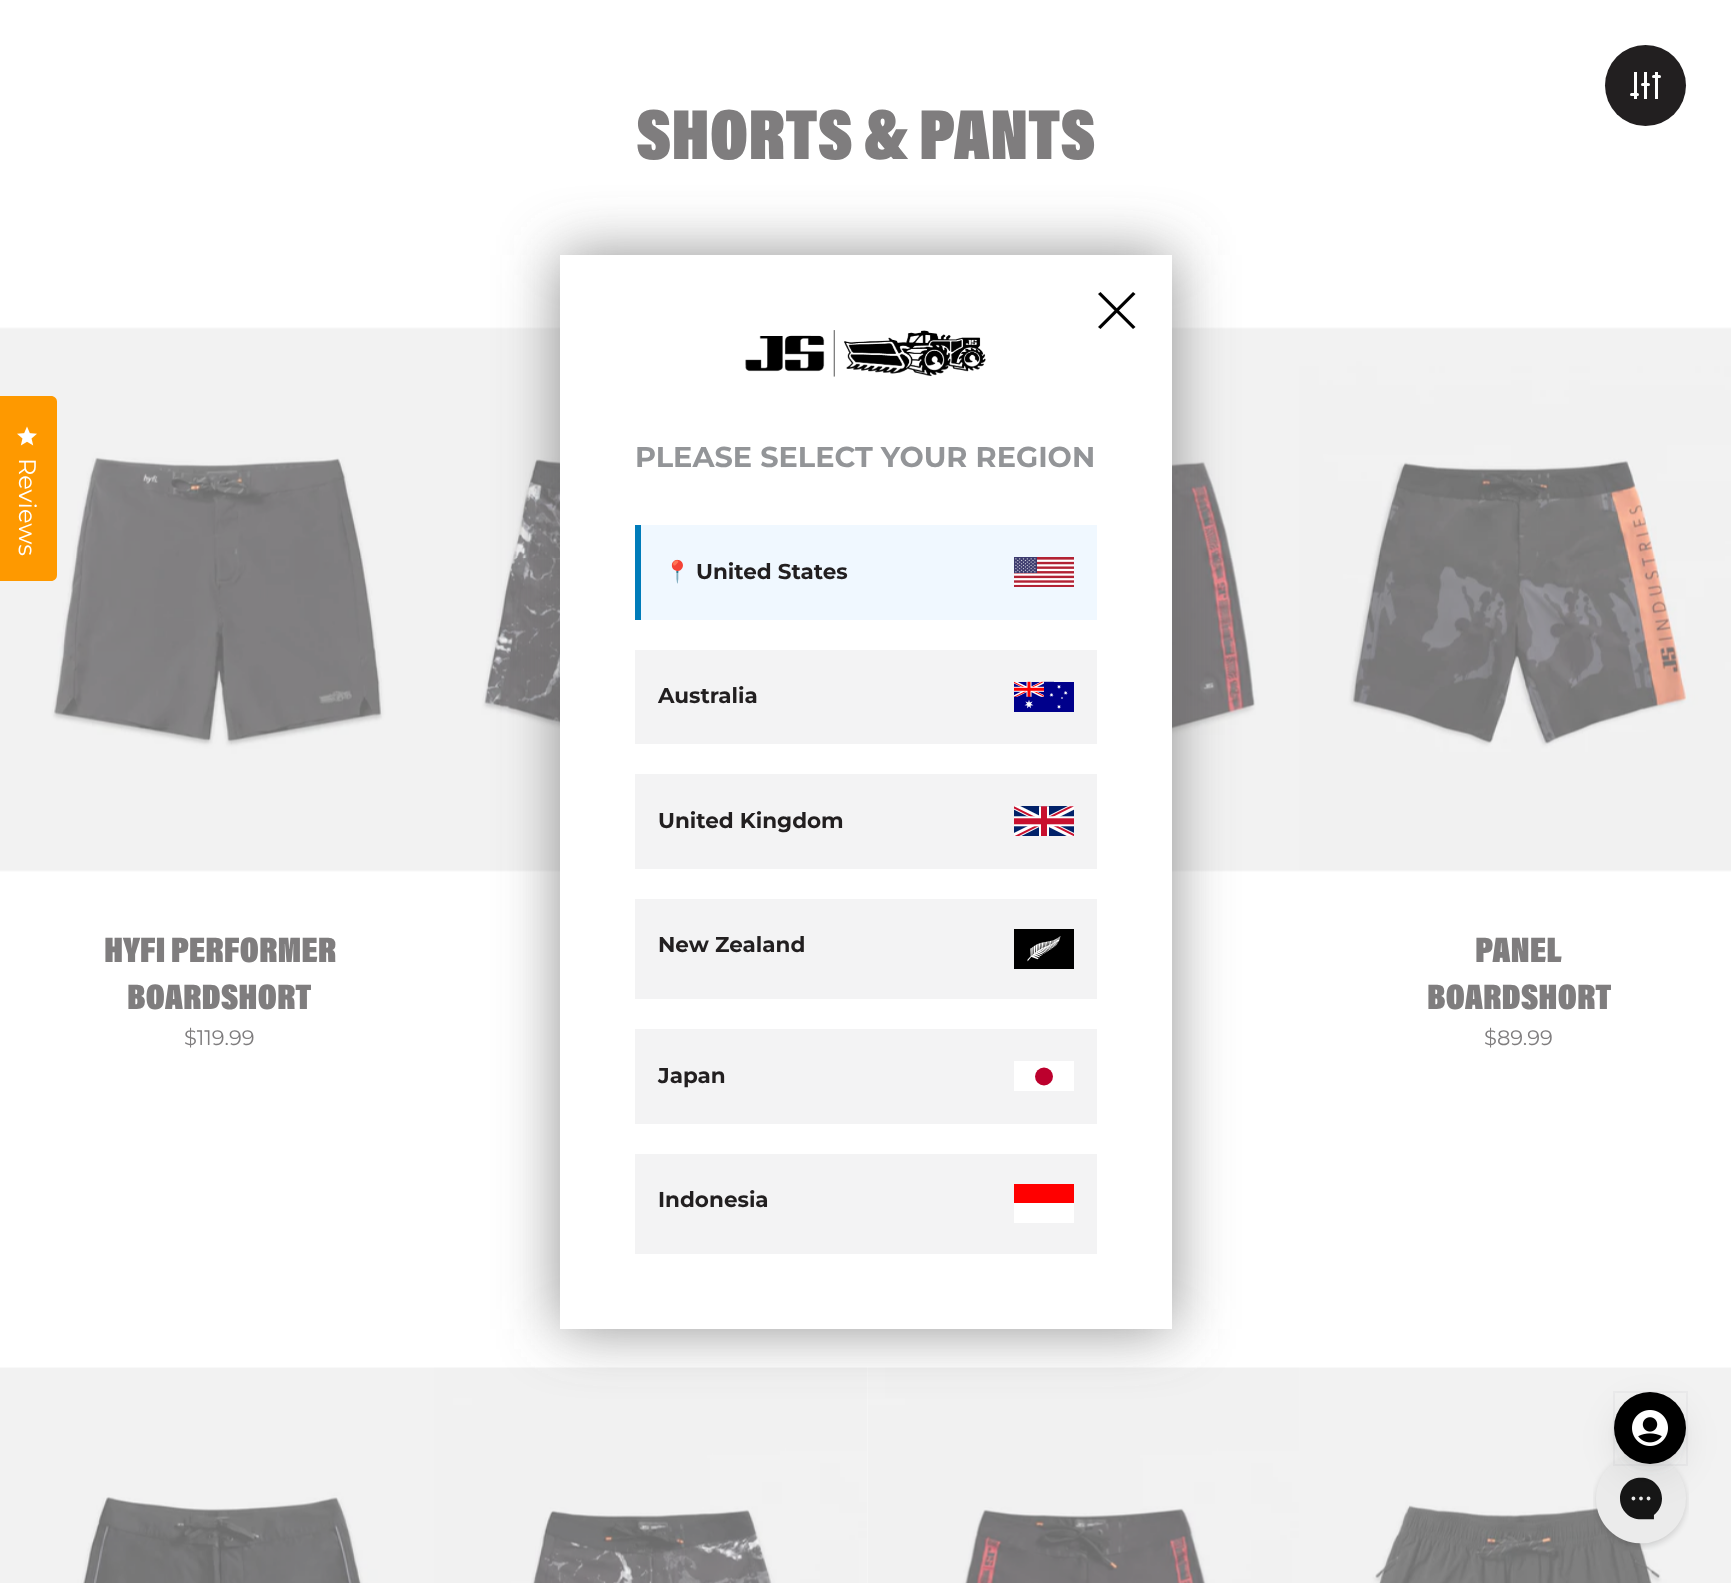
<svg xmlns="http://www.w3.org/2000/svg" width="1731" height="1583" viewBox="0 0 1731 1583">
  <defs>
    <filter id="blur1" x="-50%" y="-200%" width="200%" height="500%"><feGaussianBlur stdDeviation="30"/></filter>
    <filter id="blur2" x="-50%" y="-200%" width="200%" height="500%"><feGaussianBlur stdDeviation="18"/></filter>
    <filter id="blur3" x="-50%" y="-200%" width="200%" height="500%"><feGaussianBlur stdDeviation="3"/></filter>
  </defs>
  <rect width="100%" height="100%" fill="#ffffff"/>
  <circle cx="1645.5" cy="85.5" r="40.5" fill="#221f20"/>
  <rect x="1634" y="72" width="3" height="27" fill="#ffffff"/>
  <rect x="1644" y="72" width="3" height="27" fill="#ffffff"/>
  <rect x="1655" y="72" width="3" height="27" fill="#ffffff"/>
  <rect x="1652" y="75" width="9" height="3" rx="1.5" fill="#ffffff"/>
  <rect x="1641" y="83" width="9" height="3" rx="1.5" fill="#ffffff"/>
  <rect x="1630" y="93" width="9" height="3" rx="1.5" fill="#ffffff"/>
  <text x="636" y="159" font-family="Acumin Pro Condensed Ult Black" font-size="72" font-weight="800" fill="#7f7d7e">SHORTS &amp; PANTS</text>
  <image x="434" y="327" width="126" height="545" href="img1.png"/>
  <image x="1172" y="327" width="127" height="545" href="img2.png"/>
  <image x="0" y="327" width="434" height="545" href="img3.png"/>
  <text x="104" y="962" font-family="Acumin Pro Condensed Ult Black" font-size="36" font-weight="800" fill="#7f7d7e">HYFI PERFORMER</text>
  <text x="127" y="1009" font-family="Acumin Pro Condensed Ult Black" font-size="36" font-weight="800" fill="#7f7d7e">BOARDSHORT</text>
  <text x="184" y="1045" font-family="Montserrat" font-size="21" font-weight="100" fill="#7f7d7e">$119.99</text>
  <image x="1299" y="327" width="432" height="545" href="img4.png"/>
  <text x="1475" y="962" font-family="Acumin Pro Condensed Ult Black" font-size="36" font-weight="800" fill="#7f7d7e">PANEL</text>
  <text x="1427" y="1009" font-family="Acumin Pro Condensed Ult Black" font-size="36" font-weight="800" fill="#7f7d7e">BOARDSHORT</text>
  <text x="1484" y="1045" font-family="Montserrat" font-size="21" font-weight="100" fill="#7f7d7e">$89.99</text>
  <image x="0" y="1367" width="434" height="216" href="img5.png"/>
  <image x="434" y="1367" width="433" height="216" href="img6.png"/>
  <image x="867" y="1367" width="432" height="216" href="img7.png"/>
  <image x="1299" y="1367" width="432" height="216" href="img8.png"/>
  <path d="M-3 396H51C54.5 396 57 398.5 57 402V575C57 578.5 54.5 581 51 581H-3Z" fill="#fe9900"/>
  <image x="17" y="426" width="20" height="20" href="img9.png"/>
  <text x="19" y="458" transform="rotate(90.1 19 458)" font-family="Montserrat" font-size="24" font-weight="100" fill="#ffffff">Reviews</text>
  <rect x="560" y="255" width="612" height="1074" fill="#6b6b6b" fill-opacity="0.75" filter="url(#blur1)"/>
  <rect x="560" y="255" width="612" height="1074" fill="#ffffff"/>
  <path d="M1133 292L1135.5 294L1100.5 329L1098 327Z" fill="#000000"/>
  <path d="M1098 294L1100.5 292L1135.5 327L1133 329Z" fill="#000000"/>
  <image x="745" y="330" width="241" height="47" href="img10.png"/>
  <text x="635" y="467" font-family="Montserrat" font-size="28.75" font-weight="bold" fill="#939598">PLEASE SELECT YOUR REGION</text>
  <rect x="641" y="525" width="456" height="95" fill="#f0f8ff"/>
  <rect x="635" y="525" width="6" height="95" fill="#007cba"/>
  <text x="664" y="579" font-family="Noto Color Emoji" font-size="21.5" fill="#221f20">📍</text>
  <text x="696" y="579" font-family="Montserrat" font-size="21.5" font-weight="bold" fill="#221f20">United States</text>
  <image x="1014" y="557" width="60" height="30" href="img11.png"/>
  <rect x="635" y="650" width="462" height="94" fill="#f3f3f4"/>
  <text x="658" y="703" font-family="Montserrat" font-size="21.5" font-weight="bold" fill="#221f20">Australia</text>
  <image x="1014" y="681" width="60" height="31" href="img12.png"/>
  <rect x="635" y="774" width="462" height="95" fill="#f3f3f4"/>
  <text x="658" y="828" font-family="Montserrat" font-size="21.5" font-weight="bold" fill="#221f20">United Kingdom</text>
  <image x="1014" y="806" width="60" height="30" href="img13.png"/>
  <rect x="635" y="899" width="462" height="100" fill="#f3f3f4"/>
  <text x="658" y="952" font-family="Montserrat" font-size="21.5" font-weight="bold" fill="#221f20">New Zealand</text>
  <image x="1014" y="929" width="60" height="40" href="img14.png"/>
  <rect x="635" y="1029" width="462" height="95" fill="#f3f3f4"/>
  <text x="658" y="1083" font-family="Montserrat" font-size="21.5" font-weight="bold" fill="#221f20">Japan</text>
  <rect x="1014" y="1061" width="60" height="30" fill="#ffffff"/>
  <circle cx="1044" cy="1076.5" r="9" fill="#bc002d"/>
  <rect x="635" y="1154" width="462" height="100" fill="#f3f3f4"/>
  <text x="658" y="1207" font-family="Montserrat" font-size="21.5" font-weight="bold" fill="#221f20">Indonesia</text>
  <rect x="1014" y="1203" width="60" height="20" fill="#ffffff"/>
  <rect x="1014" y="1184" width="60" height="19" fill="#ff0000"/>
  <image x="1593" y="1455" width="96" height="95" href="img16.png"/>
  <rect x="1614" y="1404" width="72" height="72" rx="36" fill="#373f47" fill-opacity="0.08" filter="url(#blur2)"/>
  <rect x="1614" y="1398" width="72" height="72" rx="36" fill="#373f47" fill-opacity="0.08" filter="url(#blur3)"/>
  <rect x="1614" y="1392" width="73" height="73" fill="none" stroke="#373f47" stroke-opacity="0.04" stroke-width="2"/>
  <circle cx="1650" cy="1428" r="36" fill="#000000"/>
  <image x="1632" y="1410" width="36" height="36" href="img15.png"/>
</svg>
